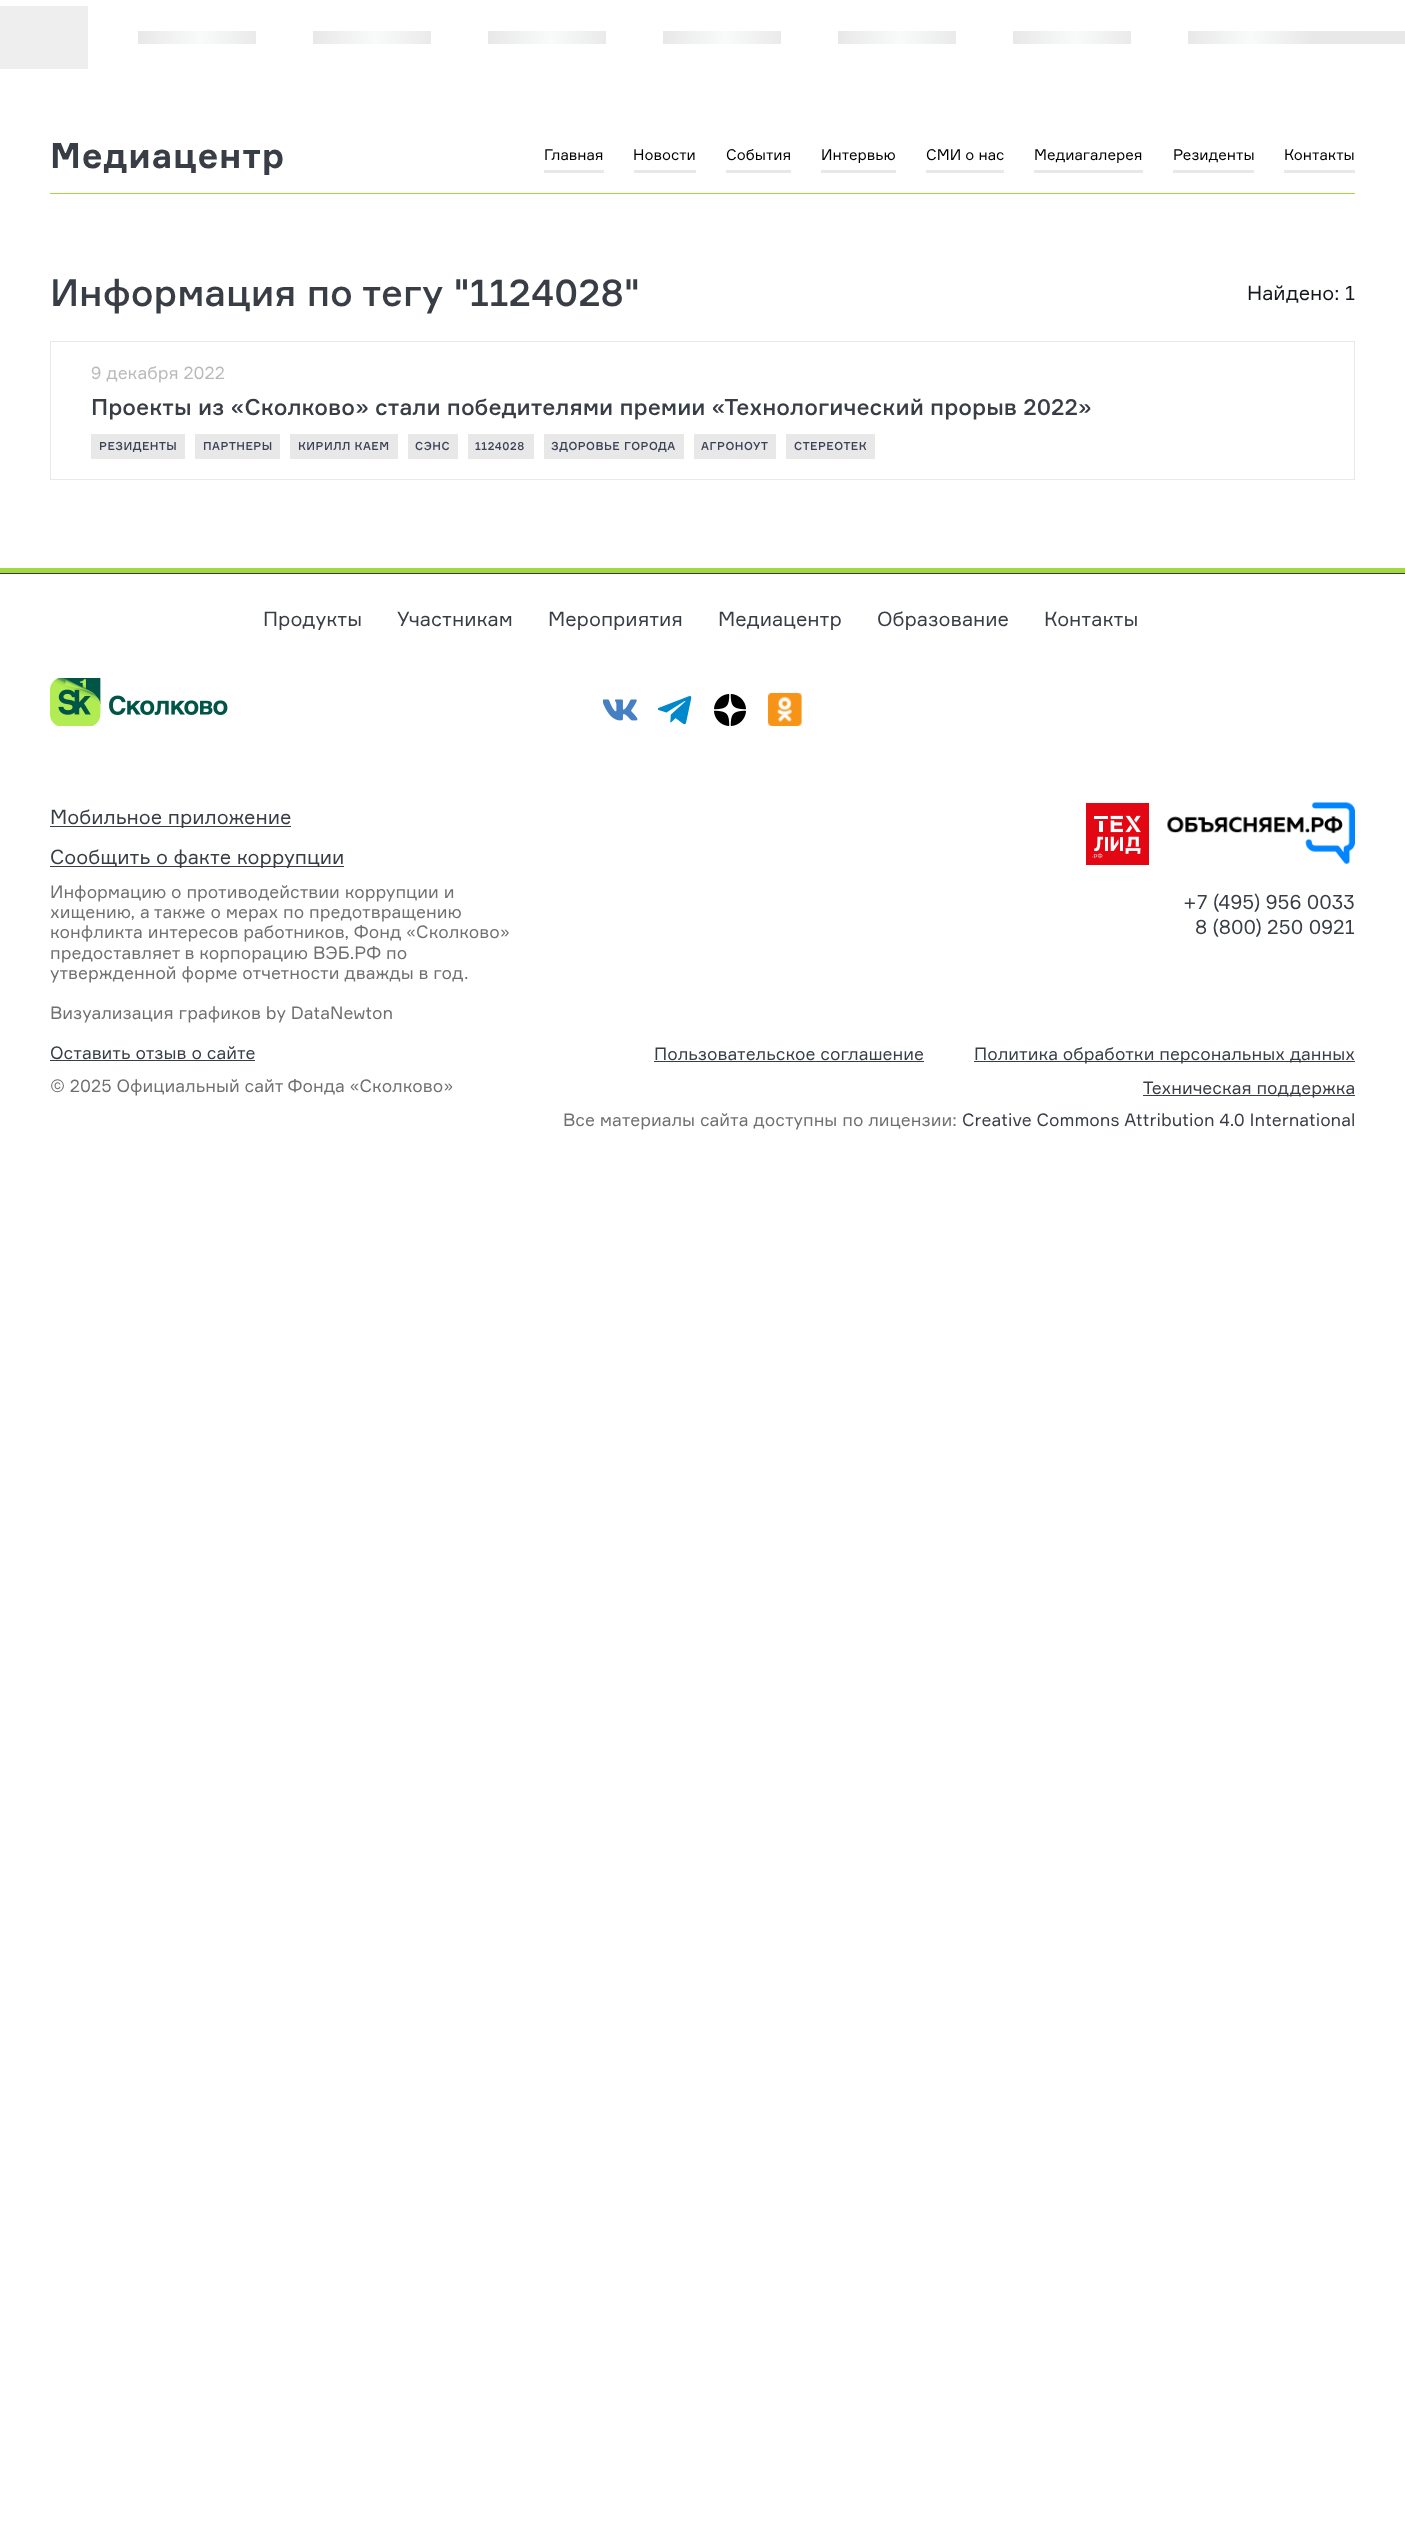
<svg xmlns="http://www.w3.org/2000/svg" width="1405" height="2546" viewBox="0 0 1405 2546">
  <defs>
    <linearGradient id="g1" gradientUnits="userSpaceOnUse" x1="138" y1="38" x2="263" y2="37"><stop offset="0" stop-color="#e8e8e8"/><stop offset="0.5" stop-color="#f9fafa"/><stop offset="1" stop-color="#e8e8e8"/></linearGradient>
    <linearGradient id="g2" gradientUnits="userSpaceOnUse" x1="313" y1="38" x2="438" y2="37"><stop offset="0" stop-color="#e8e8e8"/><stop offset="0.5" stop-color="#f9fafa"/><stop offset="1" stop-color="#e8e8e8"/></linearGradient>
    <linearGradient id="g3" gradientUnits="userSpaceOnUse" x1="488" y1="38" x2="613" y2="37"><stop offset="0" stop-color="#e8e8e8"/><stop offset="0.5" stop-color="#f9fafa"/><stop offset="1" stop-color="#e8e8e8"/></linearGradient>
    <linearGradient id="g4" gradientUnits="userSpaceOnUse" x1="663" y1="38" x2="788" y2="37"><stop offset="0" stop-color="#e8e8e8"/><stop offset="0.5" stop-color="#f9fafa"/><stop offset="1" stop-color="#e8e8e8"/></linearGradient>
    <linearGradient id="g5" gradientUnits="userSpaceOnUse" x1="838" y1="38" x2="963" y2="37"><stop offset="0" stop-color="#e8e8e8"/><stop offset="0.5" stop-color="#f9fafa"/><stop offset="1" stop-color="#e8e8e8"/></linearGradient>
    <linearGradient id="g6" gradientUnits="userSpaceOnUse" x1="1013" y1="38" x2="1138" y2="37"><stop offset="0" stop-color="#e8e8e8"/><stop offset="0.5" stop-color="#f9fafa"/><stop offset="1" stop-color="#e8e8e8"/></linearGradient>
    <linearGradient id="g7" gradientUnits="userSpaceOnUse" x1="1188" y1="38" x2="1313" y2="37"><stop offset="0" stop-color="#e8e8e8"/><stop offset="0.5" stop-color="#f9fafa"/><stop offset="1" stop-color="#e8e8e8"/></linearGradient>
  </defs>
  <rect width="100%" height="100%" fill="#ffffff"/>
  <rect x="0" y="6" width="88" height="63" fill="#eeeeee"/>
  <rect x="138" y="31" width="118" height="13" fill="url(#g1)"/>
  <rect x="313" y="31" width="118" height="13" fill="url(#g2)"/>
  <rect x="488" y="31" width="118" height="13" fill="url(#g3)"/>
  <rect x="663" y="31" width="118" height="13" fill="url(#g4)"/>
  <rect x="838" y="31" width="118" height="13" fill="url(#g5)"/>
  <rect x="1013" y="31" width="118" height="13" fill="url(#g6)"/>
  <rect x="1313" y="31" width="92" height="13" fill="#e8e8e8"/>
  <rect x="1188" y="31" width="125" height="13" fill="url(#g7)"/>
  <rect x="50" y="193" width="1305" height="1" fill="#9edb3c"/>
  <text x="50" y="168" font-family="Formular" font-size="35" font-weight="bold" letter-spacing="0.75" fill="#393e46">Медиацентр</text>
  <rect x="544" y="170" width="60" height="3" fill="#e8e8e8"/>
  <text x="544" y="160" font-family="Formular" font-size="15" fill="#000000">Главная</text>
  <rect x="634" y="170" width="62" height="3" fill="#e8e8e8"/>
  <text x="633" y="160" font-family="Formular" font-size="15" fill="#000000">Новости</text>
  <rect x="726" y="170" width="65" height="3" fill="#e8e8e8"/>
  <text x="726" y="160" font-family="Formular" font-size="15" fill="#000000">События</text>
  <rect x="821" y="170" width="75" height="3" fill="#e8e8e8"/>
  <text x="821" y="160" font-family="Formular" font-size="15" fill="#000000">Интервью</text>
  <rect x="926" y="170" width="78" height="3" fill="#e8e8e8"/>
  <text x="926" y="160" font-family="Formular" font-size="15" fill="#000000">СМИ о нас</text>
  <rect x="1034" y="170" width="109" height="3" fill="#e8e8e8"/>
  <text x="1034" y="160" font-family="Formular" font-size="15" fill="#000000">Медиагалерея</text>
  <rect x="1173" y="170" width="81" height="3" fill="#e8e8e8"/>
  <text x="1173" y="160" font-family="Formular" font-size="15" fill="#000000">Резиденты</text>
  <rect x="1284" y="170" width="71" height="3" fill="#e8e8e8"/>
  <text x="1284" y="160" font-family="Formular" font-size="15" fill="#000000">Контакты</text>
  <text x="50" y="306" font-family="Formular" font-size="37.5" font-weight="500" fill="#393e46">Информация по тегу "1124028"</text>
  <text x="1247" y="300" font-family="Formular" font-size="20" fill="#15181e">Найдено: 1</text>
  <rect x="50.5" y="341.5" width="1304" height="138" fill="none" stroke="#e8e8e8"/>
  <text x="91" y="379" font-family="Formular" font-size="17.5" fill="#b9babb">9 декабря 2022</text>
  <text x="91" y="415" font-family="Formular" font-size="22.5" font-weight="500" fill="#393e46">Проекты из «Сколково» стали победителями премии «Технологический прорыв 2022»</text>
  <rect x="91" y="434" width="94" height="25" fill="#e8e8e8"/>
  <text x="99" y="450" font-family="Formular" font-size="11.25" font-weight="500" letter-spacing="0.5" fill="#3b4256">РЕЗИДЕНТЫ</text>
  <rect x="195" y="434" width="85" height="25" fill="#e8e8e8"/>
  <text x="203" y="450" font-family="Formular" font-size="11.25" font-weight="500" letter-spacing="0.5" fill="#3b4256">ПАРТНЕРЫ</text>
  <rect x="290" y="434" width="108" height="25" fill="#e8e8e8"/>
  <text x="298" y="450" font-family="Formular" font-size="11.25" font-weight="500" letter-spacing="0.5" fill="#3b4256">КИРИЛЛ КАЕМ</text>
  <rect x="408" y="434" width="50" height="25" fill="#e8e8e8"/>
  <text x="415" y="450" font-family="Formular" font-size="11.25" font-weight="500" letter-spacing="0.5" fill="#3b4256">СЭНС</text>
  <rect x="468" y="434" width="66" height="25" fill="#e8e8e8"/>
  <text x="475" y="450" font-family="Formular" font-size="11.25" font-weight="500" letter-spacing="0.5" fill="#3b4256">1124028</text>
  <rect x="544" y="434" width="140" height="25" fill="#e8e8e8"/>
  <text x="551" y="450" font-family="Formular" font-size="11.25" font-weight="500" letter-spacing="0.5" fill="#3b4256">ЗДОРОВЬЕ ГОРОДА</text>
  <rect x="694" y="434" width="82" height="25" fill="#e8e8e8"/>
  <text x="701" y="450" font-family="Formular" font-size="11.25" font-weight="500" letter-spacing="0.5" fill="#3b4256">АГРОНОУТ</text>
  <rect x="786" y="434" width="89" height="25" fill="#e8e8e8"/>
  <text x="794" y="450" font-family="Formular" font-size="11.25" font-weight="500" letter-spacing="0.5" fill="#3b4256">СТЕРЕОТЕК</text>
  <rect x="0" y="568" width="1405" height="5" fill="#9fdb3d"/>
  <rect x="0" y="573" width="1405" height="1" fill="#393e46"/>
  <text x="263" y="626" font-family="Formular" font-size="20" fill="#393e46">Продукты</text>
  <text x="397" y="626" font-family="Formular" font-size="20" fill="#393e46">Участникам</text>
  <text x="548" y="626" font-family="Formular" font-size="20" fill="#393e46">Мероприятия</text>
  <text x="718" y="626" font-family="Formular" font-size="20" fill="#393e46">Медиацентр</text>
  <text x="877" y="626" font-family="Formular" font-size="20" fill="#393e46">Образование</text>
  <text x="1044" y="626" font-family="Formular" font-size="20" fill="#393e46">Контакты</text>
  <image x="603" y="699" width="35" height="22" href="img1.png"/>
  <image x="658" y="696" width="34" height="29" href="img2.png"/>
  <image x="714" y="694" width="32" height="32" href="img3.png"/>
  <image x="768" y="693" width="34" height="33" href="img4.png"/>
  <image x="50" y="678" width="178" height="48" href="img5.png"/>
  <rect x="50" y="826" width="241" height="1" fill="#393e46"/>
  <text x="50" y="824" font-family="Formular" font-size="20" fill="#393e46">Мобильное приложение</text>
  <rect x="50" y="866" width="294" height="1" fill="#393e46"/>
  <text x="50" y="864" font-family="Formular" font-size="20" fill="#393e46">Сообщить о факте коррупции</text>
  <text x="50" y="898" font-family="Formular" font-size="17.5" fill="#707070">Информацию о противодействии коррупции и</text>
  <text x="50" y="918" font-family="Formular" font-size="17.5" fill="#707070">хищению, а также о мерах по предотвращению</text>
  <text x="50" y="938" font-family="Formular" font-size="17.5" fill="#707070">конфликта интересов работников, Фонд «Сколково»</text>
  <text x="50" y="959" font-family="Formular" font-size="17.5" fill="#707070">предоставляет в корпорацию ВЭБ.РФ по</text>
  <text x="50" y="979" font-family="Formular" font-size="17.5" fill="#707070">утвержденной форме отчетности дважды в год.</text>
  <text x="50" y="1019" font-family="Formular" font-size="17.5" fill="#707070">Визуализация графиков by DataNewton</text>
  <image x="1086" y="803" width="63" height="62" href="img6.png"/>
  <image x="1167" y="802" width="188" height="62" href="img7.png"/>
  <text x="1183" y="909" font-family="Formular" font-size="20" fill="#393e46">+7 (495) 956 0033</text>
  <text x="1195" y="934" font-family="Formular" font-size="20" fill="#393e46">8 (800) 250 0921</text>
  <text x="50" y="1059" font-family="Formular" font-size="17.5" fill="#393e46">Оставить отзыв о сайте</text>
  <rect x="50" y="1060" width="205" height="1" fill="#393e46"/>
  <text x="50" y="1092" font-family="Formular" font-size="17.5" fill="#707070">© 2025 Официальный сайт Фонда «Сколково»</text>
  <text x="654" y="1060" font-family="Formular" font-size="17.5" fill="#393e46">Пользовательское соглашение</text>
  <rect x="654" y="1061" width="270" height="1" fill="#393e46"/>
  <rect x="974" y="1061" width="381" height="1" fill="#393e46"/>
  <text x="974" y="1060" font-family="Formular" font-size="17.5" fill="#393e46">Политика обработки персональных данных</text>
  <rect x="1143" y="1095" width="212" height="1" fill="#393e46"/>
  <text x="1143" y="1094" font-family="Formular" font-size="17.5" fill="#393e46">Техническая поддержка</text>
  <text x="563" y="1126" font-family="Formular" font-size="17.5" fill="#707070">Все материалы сайта доступны по лицензии:</text>
  <text x="962" y="1126" font-family="Formular" font-size="17.5" fill="#393e46">Creative Commons Attribution 4.0 International</text>
</svg>
